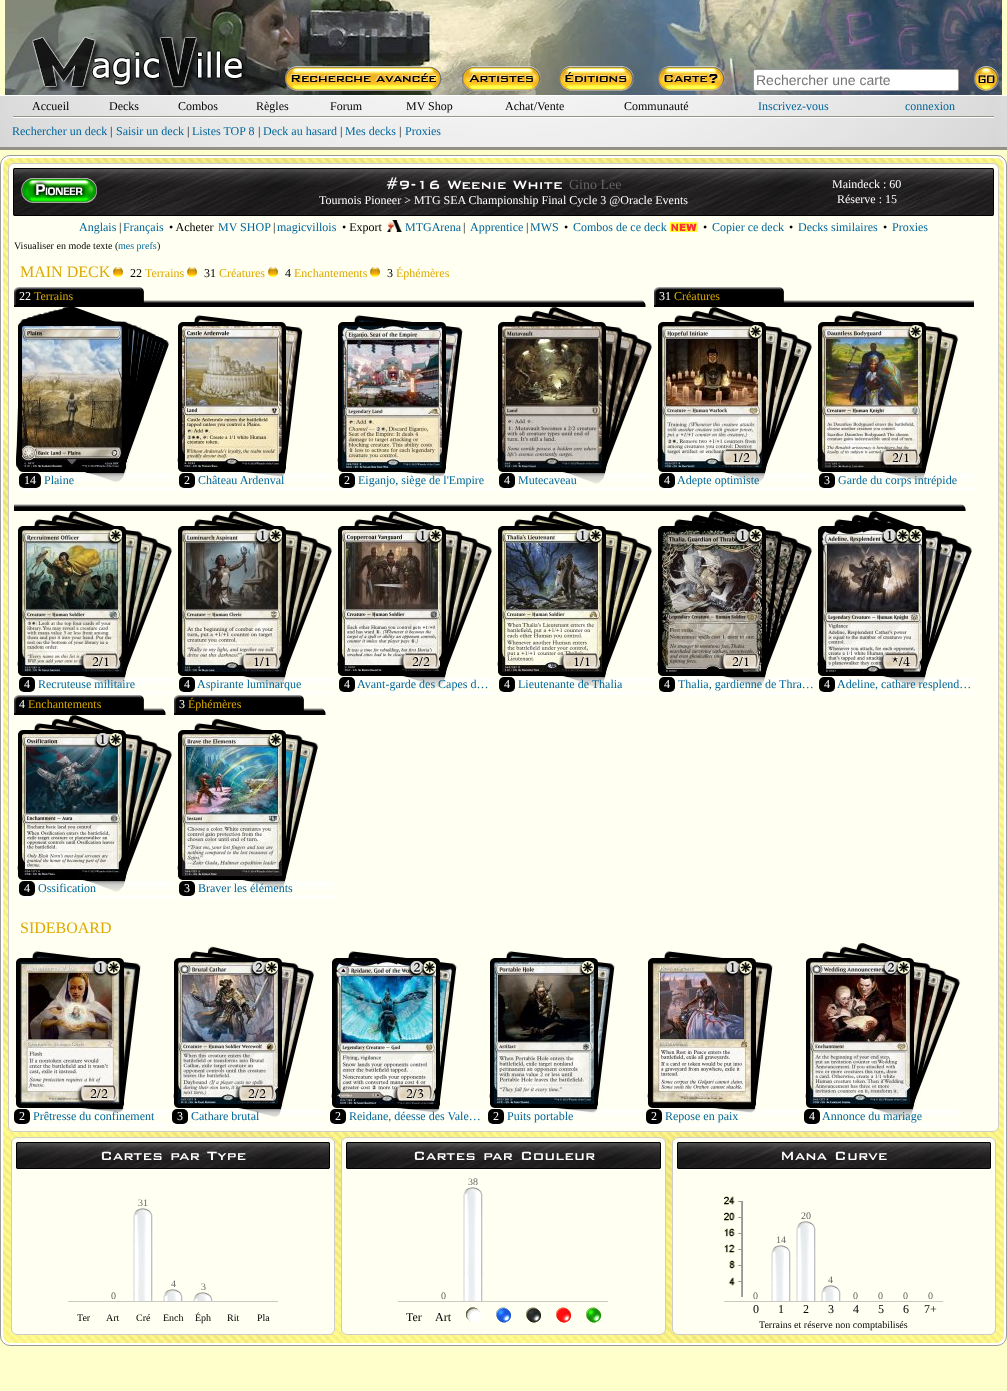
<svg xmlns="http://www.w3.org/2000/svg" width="1007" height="1391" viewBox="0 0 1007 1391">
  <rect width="100%" height="100%" fill="#ffffcc"/>
  <image x="5" y="0" width="997" height="95" href="img1.png"/>
  <image x="32" y="37" width="213" height="54" href="img2.png"/>
  <image x="285" y="66" width="157" height="25" href="img3.png"/>
  <image x="462" y="66" width="79" height="25" href="img4.png"/>
  <image x="559" y="66" width="75" height="25" href="img5.png"/>
  <image x="658" y="66" width="67" height="25" href="img6.png"/>
  <rect x="753.5" y="69.5" width="205" height="21" rx="1.5" fill="#ffffff" stroke="#999999"/>
  <text x="756" y="85" font-family="Liberation Sans" font-size="14" fill="#757575">Rechercher une carte</text>
  <image x="974" y="66" width="25" height="25" href="img7.png"/>
  <image x="0" y="96" width="1007" height="51" href="img8.png"/>
  <rect x="0" y="95" width="1007" height="1" fill="#ffffff"/>
  <rect x="0" y="147" width="1007" height="3" fill="#919185"/>
  <text x="32" y="110" font-family="Liberation Serif" font-size="12" fill="#000000">Accueil</text>
  <text x="109" y="110" font-family="Liberation Serif" font-size="12" fill="#000000">Decks</text>
  <text x="178" y="110" font-family="Liberation Serif" font-size="12" fill="#000000">Combos</text>
  <text x="256" y="110" font-family="Liberation Serif" font-size="12" fill="#000000">Règles</text>
  <text x="330" y="110" font-family="Liberation Serif" font-size="12" fill="#000000">Forum</text>
  <text x="406" y="110" font-family="Liberation Serif" font-size="12" fill="#000000">MV Shop</text>
  <text x="505" y="110" font-family="Liberation Serif" font-size="12" fill="#000000">Achat/Vente</text>
  <text x="624" y="110" font-family="Liberation Serif" font-size="12" fill="#000000">Communauté</text>
  <text x="758" y="110" font-family="Liberation Serif" font-size="12" fill="#006699">Inscrivez-vous</text>
  <text x="905" y="110" font-family="Liberation Serif" font-size="12" fill="#006699">connexion</text>
  <image x="13" y="116" width="981" height="2" href="img9.png"/>
  <text x="12" y="135" font-family="Liberation Serif" font-size="12" fill="#006699">Rechercher un deck</text>
  <text x="110" y="135" font-family="Liberation Serif" font-size="12" fill="#000000">|</text>
  <text x="116" y="135" font-family="Liberation Serif" font-size="12" fill="#006699">Saisir un deck</text>
  <text x="187" y="135" font-family="Liberation Serif" font-size="12" fill="#000000">|</text>
  <text x="192" y="135" font-family="Liberation Serif" font-size="12" fill="#006699">Listes TOP 8</text>
  <text x="258" y="135" font-family="Liberation Serif" font-size="12" fill="#000000">|</text>
  <text x="263" y="135" font-family="Liberation Serif" font-size="12" fill="#006699">Deck au hasard</text>
  <text x="340" y="135" font-family="Liberation Serif" font-size="12" fill="#000000">|</text>
  <text x="345" y="135" font-family="Liberation Serif" font-size="12" fill="#006699">Mes decks</text>
  <text x="399" y="135" font-family="Liberation Serif" font-size="12" fill="#000000">|</text>
  <text x="405" y="135" font-family="Liberation Serif" font-size="12" fill="#006699">Proxies</text>
  <rect x="0.5" y="155.5" width="1006" height="1190" rx="9.5" fill="#ffffff" stroke="#999999"/>
  <image x="3" y="158" width="1001" height="1185" href="img10.png"/>
  <rect x="8.5" y="163.5" width="990" height="968" rx="5.5" fill="#fffff2" stroke="#cccccc"/>
  <image x="13" y="168" width="981" height="48" href="img11.png"/>
  <rect x="13.5" y="168.5" width="980" height="47" rx="1.5" fill="none" stroke="#000000"/>
  <image x="21" y="178" width="76" height="25" href="img12.png"/>
  <text x="386" y="189" font-family="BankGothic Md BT" font-size="16" font-weight="500" fill="#ffffff">#9-16 Weenie White</text>
  <text x="569" y="189" font-family="Liberation Serif" font-size="14" fill="#666666">Gino Lee</text>
  <text x="319" y="204" font-family="Liberation Serif" font-size="12" fill="#ffffff">Tournois Pioneer &gt; MTG SEA Championship Final Cycle 3 @Oracle Events</text>
  <text x="832" y="188" font-family="Liberation Serif" font-size="12" fill="#ffffff">Maindeck : 60</text>
  <text x="837" y="203" font-family="Liberation Serif" font-size="12" fill="#ffffff">Réserve : 15</text>
  <text x="79" y="231" font-family="Liberation Serif" font-size="12" fill="#006699">Anglais</text>
  <text x="119" y="231" font-family="Liberation Serif" font-size="12" fill="#000000">|</text>
  <text x="123" y="231" font-family="Liberation Serif" font-size="12" fill="#006699">Français</text>
  <text x="169" y="231" font-family="Liberation Serif" font-size="12" fill="#000000">• Acheter</text>
  <text x="218" y="231" font-family="Liberation Serif" font-size="12" fill="#006699">MV SHOP</text>
  <text x="273" y="231" font-family="Liberation Serif" font-size="12" fill="#000000">|</text>
  <text x="277" y="231" font-family="Liberation Serif" font-size="12" fill="#006699">magicvillois</text>
  <text x="342" y="231" font-family="Liberation Serif" font-size="12" fill="#000000">• Export</text>
  <image x="387" y="220" width="15" height="12" href="img13.png"/>
  <text x="405" y="231" font-family="Liberation Serif" font-size="12" fill="#006699">MTGArena</text>
  <text x="463" y="231" font-family="Liberation Serif" font-size="12" fill="#000000">|</text>
  <text x="470" y="231" font-family="Liberation Serif" font-size="12" fill="#006699">Apprentice</text>
  <text x="526" y="231" font-family="Liberation Serif" font-size="12" fill="#000000">|</text>
  <text x="530" y="231" font-family="Liberation Serif" font-size="12" fill="#006699">MWS</text>
  <text x="564" y="231" font-family="Liberation Serif" font-size="12" fill="#000000">•</text>
  <text x="573" y="231" font-family="Liberation Serif" font-size="12" fill="#006699">Combos de ce deck</text>
  <image x="670" y="222" width="28" height="10" href="img14.png"/>
  <text x="703" y="231" font-family="Liberation Serif" font-size="12" fill="#000000">•</text>
  <text x="712" y="231" font-family="Liberation Serif" font-size="12" fill="#006699">Copier ce deck</text>
  <text x="789" y="231" font-family="Liberation Serif" font-size="12" fill="#000000">•</text>
  <text x="798" y="231" font-family="Liberation Serif" font-size="12" fill="#006699">Decks similaires</text>
  <text x="883" y="231" font-family="Liberation Serif" font-size="12" fill="#000000">•</text>
  <text x="892" y="231" font-family="Liberation Serif" font-size="12" fill="#006699">Proxies</text>
  <text x="14" y="249" font-family="Liberation Serif" font-size="10" fill="#000000">Visualiser en mode texte (</text>
  <text x="118" y="249" font-family="Liberation Serif" font-size="10" fill="#006699">mes prefs</text>
  <text x="157" y="249" font-family="Liberation Serif" font-size="10" fill="#000000">)</text>
  <text x="20" y="277" font-family="Liberation Serif" font-size="16" fill="#ddaa00">MAIN DECK</text>
  <image x="113" y="267" width="10" height="10" href="img15.png"/>
  <text x="130" y="277" font-family="Liberation Serif" font-size="12" fill="#000000">22</text>
  <text x="145" y="277" font-family="Liberation Serif" font-size="12" fill="#ddaa00">Terrains</text>
  <image x="187" y="267" width="10" height="10" href="img15.png"/>
  <text x="204" y="277" font-family="Liberation Serif" font-size="12" fill="#000000">31</text>
  <text x="219" y="277" font-family="Liberation Serif" font-size="12" fill="#ddaa00">Créatures</text>
  <image x="268" y="267" width="10" height="10" href="img15.png"/>
  <text x="285" y="277" font-family="Liberation Serif" font-size="12" fill="#000000">4</text>
  <text x="294" y="277" font-family="Liberation Serif" font-size="12" fill="#ddaa00">Enchantements</text>
  <image x="370" y="267" width="10" height="10" href="img15.png"/>
  <text x="387" y="277" font-family="Liberation Serif" font-size="12" fill="#000000">3</text>
  <text x="396" y="277" font-family="Liberation Serif" font-size="12" fill="#ddaa00">Éphémères</text>
  <image x="14" y="300" width="160" height="7" href="img16.png"/>
  <image x="14" y="287" width="130" height="18" href="img17.png"/>
  <text x="19" y="300" font-family="Liberation Serif" font-size="12" fill="#ffffff">22</text>
  <text x="34" y="300" font-family="Liberation Serif" font-size="12" fill="#ddaa00">Terrains</text>
  <image x="16" y="307" width="154" height="178" href="img18.png"/>
  <image x="19" y="473" width="155" height="18" href="img19.png"/>
  <rect x="19" y="473" width="22" height="15" rx="5" fill="#000000"/>
  <text x="24" y="484" font-family="Liberation Serif" font-size="12" fill="#ffffff">14</text>
  <text x="44" y="484" font-family="Liberation Serif" font-size="12" fill="#006699">Plaine</text>
  <image x="174" y="300" width="160" height="7" href="img16.png"/>
  <image x="177" y="315" width="126" height="162" href="img20.png"/>
  <image x="179" y="473" width="155" height="18" href="img21.png"/>
  <rect x="179" y="473" width="16" height="15" rx="5" fill="#000000"/>
  <text x="184" y="484" font-family="Liberation Serif" font-size="12" fill="#ffffff">2</text>
  <text x="198" y="484" font-family="Liberation Serif" font-size="12" fill="#006699">Château Ardenval</text>
  <image x="334" y="300" width="160" height="7" href="img16.png"/>
  <image x="337" y="315" width="126" height="162" href="img22.png"/>
  <image x="339" y="473" width="155" height="18" href="img21.png"/>
  <rect x="339" y="473" width="16" height="15" rx="5" fill="#000000"/>
  <text x="344" y="484" font-family="Liberation Serif" font-size="12" fill="#ffffff">2</text>
  <text x="358" y="484" font-family="Liberation Serif" font-size="12" fill="#006699">Eiganjo, siège de l'Empire</text>
  <image x="494" y="300" width="152" height="7" href="img23.png"/>
  <image x="497" y="307" width="156" height="178" href="img24.png"/>
  <image x="499" y="473" width="155" height="18" href="img25.png"/>
  <rect x="499" y="473" width="16" height="15" rx="5" fill="#000000"/>
  <text x="504" y="484" font-family="Liberation Serif" font-size="12" fill="#ffffff">4</text>
  <text x="518" y="484" font-family="Liberation Serif" font-size="12" fill="#006699">Mutecaveau</text>
  <image x="654" y="300" width="160" height="7" href="img16.png"/>
  <image x="654" y="287" width="130" height="18" href="img17.png"/>
  <text x="659" y="300" font-family="Liberation Serif" font-size="12" fill="#ffffff">31</text>
  <text x="674" y="300" font-family="Liberation Serif" font-size="12" fill="#ddaa00">Créatures</text>
  <image x="657" y="307" width="156" height="178" href="img26.png"/>
  <image x="659" y="473" width="155" height="18" href="img27.png"/>
  <rect x="659" y="473" width="16" height="15" rx="5" fill="#000000"/>
  <text x="664" y="484" font-family="Liberation Serif" font-size="12" fill="#ffffff">4</text>
  <text x="677" y="484" font-family="Liberation Serif" font-size="12" fill="#006699">Adepte optimiste</text>
  <image x="814" y="300" width="160" height="7" href="img16.png"/>
  <image x="817" y="310" width="142" height="172" href="img28.png"/>
  <image x="819" y="473" width="155" height="18" href="img29.png"/>
  <rect x="819" y="473" width="16" height="15" rx="5" fill="#000000"/>
  <text x="824" y="484" font-family="Liberation Serif" font-size="12" fill="#ffffff">3</text>
  <text x="838" y="484" font-family="Liberation Serif" font-size="12" fill="#006699">Garde du corps intrépide</text>
  <image x="14" y="504" width="160" height="7" href="img16.png"/>
  <image x="17" y="511" width="156" height="178" href="img30.png"/>
  <image x="19" y="677" width="155" height="18" href="img31.png"/>
  <rect x="19" y="677" width="16" height="15" rx="5" fill="#000000"/>
  <text x="24" y="688" font-family="Liberation Serif" font-size="12" fill="#ffffff">4</text>
  <text x="38" y="688" font-family="Liberation Serif" font-size="12" fill="#006699">Recruteuse militaire</text>
  <image x="174" y="504" width="160" height="7" href="img16.png"/>
  <image x="177" y="511" width="156" height="178" href="img32.png"/>
  <image x="179" y="677" width="155" height="18" href="img33.png"/>
  <rect x="179" y="677" width="16" height="15" rx="5" fill="#000000"/>
  <text x="184" y="688" font-family="Liberation Serif" font-size="12" fill="#ffffff">4</text>
  <text x="197" y="688" font-family="Liberation Serif" font-size="12" fill="#006699">Aspirante luminarque</text>
  <image x="334" y="504" width="160" height="7" href="img16.png"/>
  <image x="337" y="511" width="156" height="178" href="img34.png"/>
  <image x="339" y="677" width="155" height="18" href="img35.png"/>
  <rect x="339" y="677" width="16" height="15" rx="5" fill="#000000"/>
  <text x="344" y="688" font-family="Liberation Serif" font-size="12" fill="#ffffff">4</text>
  <text x="357" y="688" font-family="Liberation Serif" font-size="12" fill="#006699">Avant-garde des Capes d…</text>
  <image x="494" y="504" width="160" height="7" href="img16.png"/>
  <image x="497" y="511" width="156" height="178" href="img36.png"/>
  <image x="499" y="677" width="155" height="18" href="img37.png"/>
  <rect x="499" y="677" width="16" height="15" rx="5" fill="#000000"/>
  <text x="504" y="688" font-family="Liberation Serif" font-size="12" fill="#ffffff">4</text>
  <text x="518" y="688" font-family="Liberation Serif" font-size="12" fill="#006699">Lieutenante de Thalia</text>
  <image x="654" y="504" width="160" height="7" href="img16.png"/>
  <image x="657" y="511" width="156" height="178" href="img38.png"/>
  <image x="659" y="677" width="155" height="18" href="img39.png"/>
  <rect x="659" y="677" width="16" height="15" rx="5" fill="#000000"/>
  <text x="664" y="688" font-family="Liberation Serif" font-size="12" fill="#ffffff">4</text>
  <text x="678" y="688" font-family="Liberation Serif" font-size="12" fill="#006699">Thalia, gardienne de Thra…</text>
  <image x="814" y="504" width="152" height="7" href="img23.png"/>
  <image x="817" y="511" width="156" height="178" href="img40.png"/>
  <image x="819" y="677" width="155" height="18" href="img41.png"/>
  <rect x="819" y="677" width="16" height="15" rx="5" fill="#000000"/>
  <text x="824" y="688" font-family="Liberation Serif" font-size="12" fill="#ffffff">4</text>
  <text x="837" y="688" font-family="Liberation Serif" font-size="12" fill="#006699">Adeline, cathare resplend…</text>
  <image x="14" y="708" width="152" height="7" href="img23.png"/>
  <image x="14" y="695" width="130" height="18" href="img17.png"/>
  <text x="19" y="708" font-family="Liberation Serif" font-size="12" fill="#ffffff">4</text>
  <text x="28" y="708" font-family="Liberation Serif" font-size="12" fill="#ddaa00">Enchantements</text>
  <image x="17" y="715" width="156" height="178" href="img42.png"/>
  <image x="19" y="881" width="155" height="18" href="img43.png"/>
  <rect x="19" y="881" width="16" height="15" rx="5" fill="#000000"/>
  <text x="24" y="892" font-family="Liberation Serif" font-size="12" fill="#ffffff">4</text>
  <text x="38" y="892" font-family="Liberation Serif" font-size="12" fill="#006699">Ossification</text>
  <image x="174" y="708" width="152" height="7" href="img23.png"/>
  <image x="174" y="695" width="130" height="18" href="img17.png"/>
  <text x="179" y="708" font-family="Liberation Serif" font-size="12" fill="#ffffff">3</text>
  <text x="188" y="708" font-family="Liberation Serif" font-size="12" fill="#ddaa00">Éphémères</text>
  <image x="177" y="718" width="142" height="172" href="img44.png"/>
  <image x="179" y="881" width="155" height="18" href="img45.png"/>
  <rect x="179" y="881" width="16" height="15" rx="5" fill="#000000"/>
  <text x="184" y="892" font-family="Liberation Serif" font-size="12" fill="#ffffff">3</text>
  <text x="198" y="892" font-family="Liberation Serif" font-size="12" fill="#006699">Braver les éléments</text>
  <text x="20" y="933" font-family="Liberation Serif" font-size="16" fill="#ddaa00">SIDEBOARD</text>
  <image x="15" y="951" width="126" height="162" href="img46.png"/>
  <image x="14" y="1109" width="155" height="18" href="img47.png"/>
  <rect x="14" y="1109" width="16" height="15" rx="5" fill="#000000"/>
  <text x="19" y="1120" font-family="Liberation Serif" font-size="12" fill="#ffffff">2</text>
  <text x="33" y="1120" font-family="Liberation Serif" font-size="12" fill="#006699">Prêtresse du confinement</text>
  <image x="173" y="946" width="142" height="172" href="img48.png"/>
  <image x="172" y="1109" width="155" height="18" href="img49.png"/>
  <rect x="172" y="1109" width="16" height="15" rx="5" fill="#000000"/>
  <text x="177" y="1120" font-family="Liberation Serif" font-size="12" fill="#ffffff">3</text>
  <text x="191" y="1120" font-family="Liberation Serif" font-size="12" fill="#006699">Cathare brutal</text>
  <image x="331" y="951" width="126" height="162" href="img50.png"/>
  <image x="330" y="1109" width="155" height="18" href="img47.png"/>
  <rect x="330" y="1109" width="16" height="15" rx="5" fill="#000000"/>
  <text x="335" y="1120" font-family="Liberation Serif" font-size="12" fill="#ffffff">2</text>
  <text x="349" y="1120" font-family="Liberation Serif" font-size="12" fill="#006699">Reidane, déesse des Vale…</text>
  <image x="489" y="951" width="126" height="162" href="img51.png"/>
  <image x="488" y="1109" width="155" height="18" href="img47.png"/>
  <rect x="488" y="1109" width="16" height="15" rx="5" fill="#000000"/>
  <text x="493" y="1120" font-family="Liberation Serif" font-size="12" fill="#ffffff">2</text>
  <text x="507" y="1120" font-family="Liberation Serif" font-size="12" fill="#006699">Puits portable</text>
  <image x="647" y="951" width="126" height="162" href="img52.png"/>
  <image x="646" y="1109" width="155" height="18" href="img47.png"/>
  <rect x="646" y="1109" width="16" height="15" rx="5" fill="#000000"/>
  <text x="651" y="1120" font-family="Liberation Serif" font-size="12" fill="#ffffff">2</text>
  <text x="665" y="1120" font-family="Liberation Serif" font-size="12" fill="#006699">Repose en paix</text>
  <image x="805" y="943" width="156" height="178" href="img53.png"/>
  <image x="804" y="1109" width="155" height="18" href="img54.png"/>
  <rect x="804" y="1109" width="16" height="15" rx="5" fill="#000000"/>
  <text x="809" y="1120" font-family="Liberation Serif" font-size="12" fill="#ffffff">4</text>
  <text x="822" y="1120" font-family="Liberation Serif" font-size="12" fill="#006699">Annonce du mariage</text>
  <rect x="11.5" y="1137.5" width="323" height="197" rx="5.5" fill="#fffff2" stroke="#cccccc"/>
  <image x="16" y="1142" width="314" height="27" href="img55.png"/>
  <rect x="16.5" y="1142.5" width="313" height="26" rx="1.5" fill="none" stroke="#000000"/>
  <text x="100" y="1160" word-spacing="1" font-family="BankGothic Md BT" font-size="16" font-weight="500" fill="#ffffff">Cartes par Type</text>
  <text x="138" y="1206" font-family="Liberation Serif" font-size="10" fill="#666666">31</text>
  <image x="133" y="1208" width="20" height="93" href="img56.png"/>
  <text x="171" y="1287" font-family="Liberation Serif" font-size="10" fill="#666666">4</text>
  <image x="163" y="1289" width="20" height="12" href="img57.png"/>
  <text x="201" y="1290" font-family="Liberation Serif" font-size="10" fill="#666666">3</text>
  <image x="193" y="1292" width="20" height="9" href="img58.png"/>
  <text x="111" y="1299" font-family="Liberation Serif" font-size="10" fill="#666666">0</text>
  <rect x="68" y="1301" width="210" height="1" fill="#cacac5"/>
  <text x="77" y="1321" font-family="Liberation Serif" font-size="10" fill="#000000">Ter</text>
  <text x="106" y="1321" font-family="Liberation Serif" font-size="10" fill="#000000">Art</text>
  <text x="136" y="1321" font-family="Liberation Serif" font-size="10" fill="#000000">Cré</text>
  <text x="163" y="1321" font-family="Liberation Serif" font-size="10" fill="#000000">Ench</text>
  <text x="195" y="1321" font-family="Liberation Serif" font-size="10" fill="#000000">Éph</text>
  <text x="227" y="1321" font-family="Liberation Serif" font-size="10" fill="#000000">Rit</text>
  <text x="257" y="1321" font-family="Liberation Serif" font-size="10" fill="#000000">Pla</text>
  <rect x="341.5" y="1137.5" width="324" height="197" rx="5.5" fill="#fffff2" stroke="#cccccc"/>
  <image x="346" y="1142" width="315" height="27" href="img59.png"/>
  <rect x="346.5" y="1142.5" width="314" height="26" rx="1.5" fill="none" stroke="#000000"/>
  <text x="413" y="1160" word-spacing="1" font-family="BankGothic Md BT" font-size="16" font-weight="500" fill="#ffffff">Cartes par Couleur</text>
  <text x="468" y="1185" font-family="Liberation Serif" font-size="10" fill="#666666">38</text>
  <image x="463" y="1187" width="20" height="114" href="img60.png"/>
  <text x="441" y="1299" font-family="Liberation Serif" font-size="10" fill="#666666">0</text>
  <rect x="398" y="1301" width="210" height="1" fill="#cacac5"/>
  <text x="406" y="1321" font-family="Liberation Serif" font-size="12" fill="#000000">Ter</text>
  <text x="435" y="1321" font-family="Liberation Serif" font-size="12" fill="#000000">Art</text>
  <image x="466" y="1307" width="15" height="16" href="img61.png"/>
  <image x="496" y="1307" width="15" height="16" href="img62.png"/>
  <image x="526" y="1307" width="15" height="16" href="img63.png"/>
  <image x="556" y="1307" width="15" height="16" href="img64.png"/>
  <image x="586" y="1307" width="15" height="16" href="img65.png"/>
  <rect x="672.5" y="1137.5" width="323" height="197" rx="5.5" fill="#fffff2" stroke="#cccccc"/>
  <image x="677" y="1142" width="314" height="27" href="img55.png"/>
  <rect x="677.5" y="1142.5" width="313" height="26" rx="1.5" fill="none" stroke="#000000"/>
  <text x="780" y="1160" word-spacing="1" font-family="BankGothic Md BT" font-size="16" font-weight="500" fill="#ffffff">Mana Curve</text>
  <image x="724" y="1196" width="19" height="101" href="img66.png"/>
  <text x="801" y="1219" font-family="Liberation Serif" font-size="10" fill="#666666">20</text>
  <image x="796" y="1221" width="20" height="80" href="img67.png"/>
  <text x="776" y="1243" font-family="Liberation Serif" font-size="10" fill="#666666">14</text>
  <image x="771" y="1245" width="20" height="56" href="img68.png"/>
  <text x="828" y="1283" font-family="Liberation Serif" font-size="10" fill="#666666">4</text>
  <image x="821" y="1285" width="20" height="16" href="img69.png"/>
  <text x="753" y="1299" font-family="Liberation Serif" font-size="10" fill="#666666">0</text>
  <text x="853" y="1299" font-family="Liberation Serif" font-size="10" fill="#666666">0</text>
  <text x="878" y="1299" font-family="Liberation Serif" font-size="10" fill="#666666">0</text>
  <text x="903" y="1299" font-family="Liberation Serif" font-size="10" fill="#666666">0</text>
  <text x="928" y="1299" font-family="Liberation Serif" font-size="10" fill="#666666">0</text>
  <rect x="724" y="1301" width="219" height="1" fill="#cacac5"/>
  <text x="753" y="1313" font-family="Liberation Serif" font-size="12" fill="#000000">0</text>
  <text x="778" y="1313" font-family="Liberation Serif" font-size="12" fill="#000000">1</text>
  <text x="803" y="1313" font-family="Liberation Serif" font-size="12" fill="#000000">2</text>
  <text x="828" y="1313" font-family="Liberation Serif" font-size="12" fill="#000000">3</text>
  <text x="853" y="1313" font-family="Liberation Serif" font-size="12" fill="#000000">4</text>
  <text x="878" y="1313" font-family="Liberation Serif" font-size="12" fill="#000000">5</text>
  <text x="903" y="1313" font-family="Liberation Serif" font-size="12" fill="#000000">6</text>
  <text x="924" y="1313" font-family="Liberation Serif" font-size="12" fill="#000000">7+</text>
  <text x="759" y="1328" font-family="Liberation Serif" font-size="10" fill="#000000">Terrains et réserve non comptabilisés</text>
</svg>
